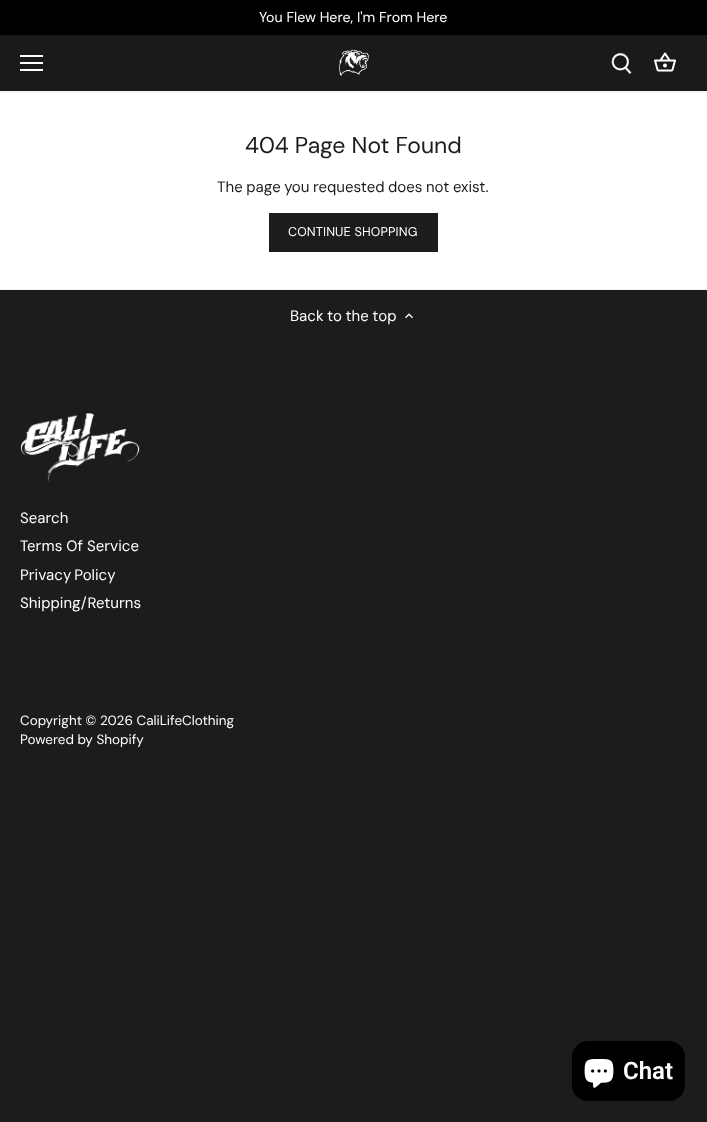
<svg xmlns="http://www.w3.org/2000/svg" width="707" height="1122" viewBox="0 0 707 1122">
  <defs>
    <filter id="blur1" x="-50%" y="-200%" width="200%" height="500%"><feGaussianBlur stdDeviation="1.5"/></filter>
  </defs>
  <rect width="100%" height="100%" fill="#1d1b1b"/>
  <rect x="0" y="91" width="707" height="198" fill="#ffffff"/>
  <rect x="-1" y="34" width="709" height="58" fill="#000000" fill-opacity="0.08" filter="url(#blur1)"/>
  <rect x="0" y="0" width="707" height="35" fill="#000000"/>
  <text x="259" y="22" font-family="'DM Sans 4'" font-size="14.25" fill="#ffffff">You Flew Here, I'm From Here</text>
  <rect x="20" y="55" width="23" height="2" fill="#ffffff"/>
  <rect x="20" y="62" width="23" height="2" fill="#ffffff"/>
  <rect x="20" y="69" width="23" height="2" fill="#ffffff"/>
  <image x="339" y="49" width="30" height="27" href="img1.png"/>
  <image x="611" y="53" width="21" height="21" href="img2.png"/>
  <image x="654" y="52" width="22" height="20" href="img3.png"/>
  <text x="245" y="153" font-family="DM Sans" font-size="23" fill="#1b1b1b">404 Page Not Found</text>
  <text x="217" y="192" word-spacing="-0.5" font-family="'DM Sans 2'" font-size="15" fill="#1b1b1b">The page you requested does not exist.</text>
  <rect x="269" y="213" width="169" height="39" fill="#1d1b1b"/>
  <text x="288" y="236" font-family="'DM Sans 2'" font-size="12.75" letter-spacing="0.1" fill="#ffffff">CONTINUE SHOPPING</text>
  <rect x="0" y="289" width="707" height="1" fill="#f4f4f4"/>
  <text x="290" y="321" word-spacing="-0.5" font-family="'DM Sans 2'" font-size="15" fill="#ffffff">Back to the top</text>
  <image x="405" y="313" width="8" height="6" href="img4.png"/>
  <image x="21" y="413" width="119" height="69" href="img5.png"/>
  <text x="20" y="523" font-family="'DM Sans 2'" font-size="15" fill="#ffffff">Search</text>
  <text x="20" y="551" font-family="'DM Sans 2'" font-size="15" fill="#ffffff">Terms Of Service</text>
  <text x="20" y="580" word-spacing="-1" font-family="'DM Sans 2'" font-size="15" fill="#ffffff">Privacy Policy</text>
  <text x="20" y="608" font-family="'DM Sans 2'" font-size="15" fill="#ffffff">Shipping/Returns</text>
  <text x="20" y="725" font-family="'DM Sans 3'" font-size="13.5" fill="#ffffff">Copyright © 2026 CaliLifeClothing</text>
  <text x="20" y="744" font-family="'DM Sans 3'" font-size="13.5" fill="#ffffff">Powered by Shopify</text>
  <rect x="572" y="1041" width="113" height="60" rx="16" fill="#000000"/>
  <image x="584" y="1059" width="30" height="29" href="img6.png"/>
  <text x="623" y="1079" font-family="Roboto" font-size="24" font-weight="600" fill="#ffffff">Chat</text>
</svg>
